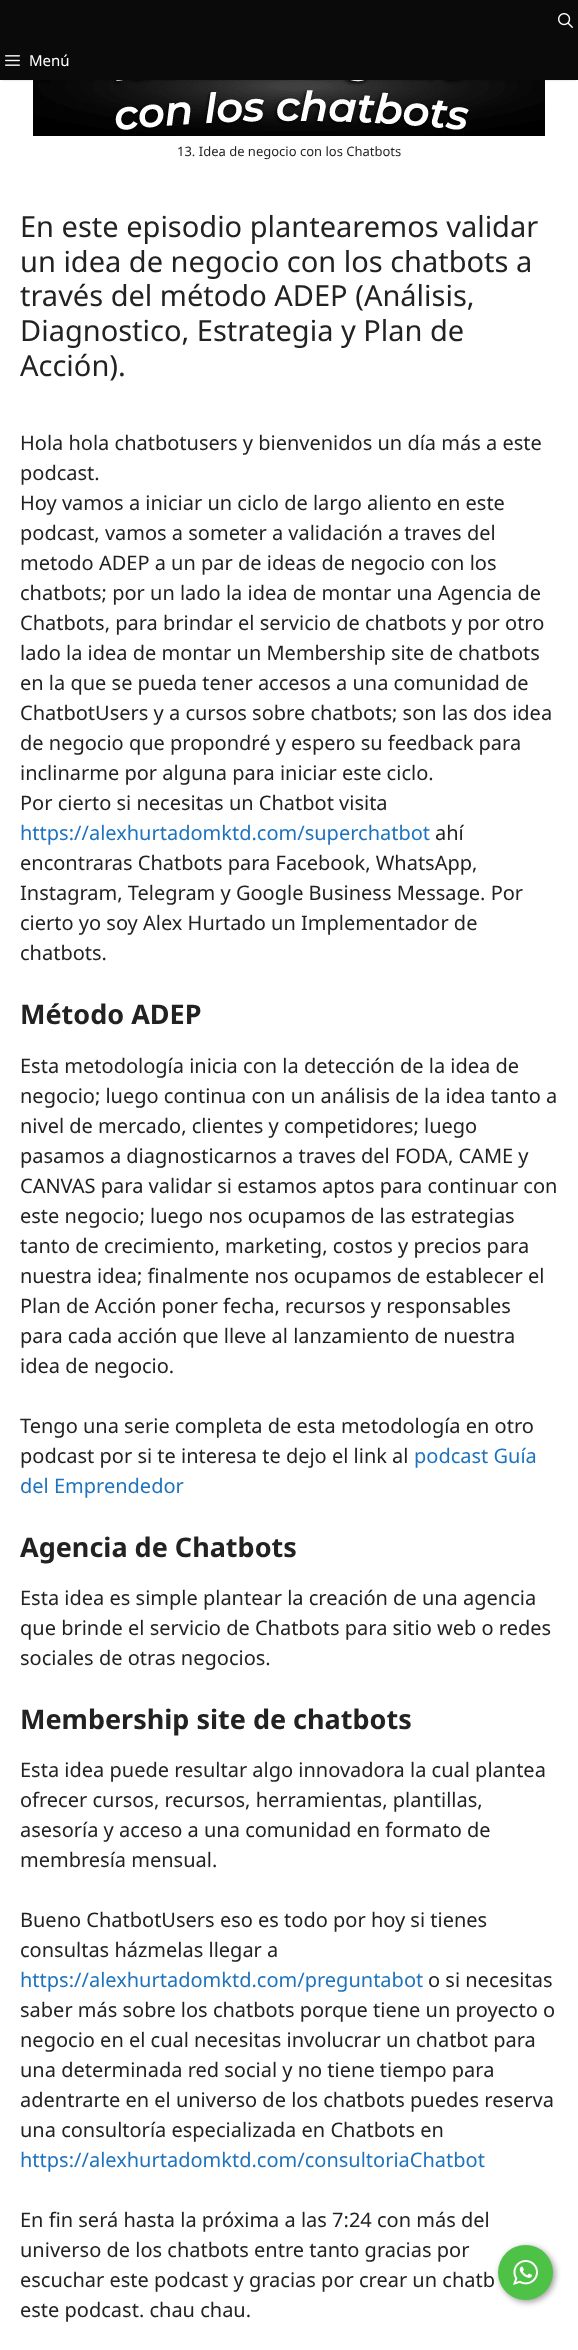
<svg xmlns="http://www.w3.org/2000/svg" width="578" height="2350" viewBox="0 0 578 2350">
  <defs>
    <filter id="blur1" x="-50%" y="-200%" width="200%" height="500%"><feGaussianBlur stdDeviation="1"/></filter>
    <filter id="blur2" x="-50%" y="-200%" width="200%" height="500%"><feGaussianBlur stdDeviation="3"/></filter>
  </defs>
  <rect width="100%" height="100%" fill="#ffffff"/>
  <image x="33" y="80" width="512" height="56" href="img3.png"/>
  <rect x="2" y="4" width="574" height="76" fill="#000000" fill-opacity="0.2" filter="url(#blur1)"/>
  <rect x="0" y="0" width="578" height="80" fill="#0a0a0a"/>
  <image x="558" y="13" width="15" height="15" href="img1.png"/>
  <image x="5" y="55" width="15" height="11" href="img2.png"/>
  <text x="29" y="66" font-family="Noto Sans" font-size="15" fill="#ffffff">Menú</text>
  <text x="177" y="156" font-family="Noto Sans" font-size="13" fill="#222222">13. Idea de negocio con los Chatbots</text>
  <text x="20" y="237" font-family="Noto Sans" font-size="29" fill="#222222">En este episodio plantearemos validar</text>
  <text x="20" y="272" font-family="Noto Sans" font-size="29" fill="#222222">un idea de negocio con los chatbots a</text>
  <text x="20" y="306" font-family="Noto Sans" font-size="29" fill="#222222">través del método ADEP (Análisis,</text>
  <text x="20" y="341" font-family="Noto Sans" font-size="29" fill="#222222">Diagnostico, Estrategia y Plan de</text>
  <text x="20" y="376" font-family="Noto Sans" font-size="29" fill="#222222">Acción).</text>
  <text x="20" y="450" font-family="Noto Sans" font-size="20" fill="#222222">Hola hola chatbotusers y bienvenidos un día más a este</text>
  <text x="20" y="480" font-family="Noto Sans" font-size="20" fill="#222222">podcast.</text>
  <text x="20" y="510" font-family="Noto Sans" font-size="20" fill="#222222">Hoy vamos a iniciar un ciclo de largo aliento en este</text>
  <text x="20" y="540" font-family="Noto Sans" font-size="20" fill="#222222">podcast, vamos a someter a validación a traves del</text>
  <text x="20" y="570" font-family="Noto Sans" font-size="20" fill="#222222">metodo ADEP a un par de ideas de negocio con los</text>
  <text x="20" y="600" font-family="Noto Sans" font-size="20" fill="#222222">chatbots; por un lado la idea de montar una Agencia de</text>
  <text x="20" y="630" font-family="Noto Sans" font-size="20" fill="#222222">Chatbots, para brindar el servicio de chatbots y por otro</text>
  <text x="20" y="660" font-family="Noto Sans" font-size="20" fill="#222222">lado la idea de montar un Membership site de chatbots</text>
  <text x="20" y="690" font-family="Noto Sans" font-size="20" fill="#222222">en la que se pueda tener accesos a una comunidad de</text>
  <text x="20" y="720" font-family="Noto Sans" font-size="20" fill="#222222">ChatbotUsers y a cursos sobre chatbots; son las dos idea</text>
  <text x="20" y="750" font-family="Noto Sans" font-size="20" fill="#222222">de negocio que propondré y espero su feedback para</text>
  <text x="20" y="780" font-family="Noto Sans" font-size="20" fill="#222222">inclinarme por alguna para iniciar este ciclo.</text>
  <text x="20" y="810" font-family="Noto Sans" font-size="20" fill="#222222">Por cierto si necesitas un Chatbot visita</text>
  <text x="20" y="840" font-family="Noto Sans" font-size="20" fill="#1e73be">https://alexhurtadomktd.com/superchatbot</text>
  <text x="435" y="840" font-family="Noto Sans" font-size="20" fill="#222222">ahí</text>
  <text x="20" y="870" font-family="Noto Sans" font-size="20" fill="#222222">encontraras Chatbots para Facebook, WhatsApp,</text>
  <text x="20" y="900" font-family="Noto Sans" font-size="20" fill="#222222">Instagram, Telegram y Google Business Message. Por</text>
  <text x="20" y="930" font-family="Noto Sans" font-size="20" fill="#222222">cierto yo soy Alex Hurtado un Implementador de</text>
  <text x="20" y="960" font-family="Noto Sans" font-size="20" fill="#222222">chatbots.</text>
  <text x="20" y="1024" font-family="Noto Sans" font-size="27" font-weight="bold" fill="#222222">Método ADEP</text>
  <text x="20" y="1073" font-family="Noto Sans" font-size="20" fill="#222222">Esta metodología inicia con la detección de la idea de</text>
  <text x="20" y="1103" font-family="Noto Sans" font-size="20" fill="#222222">negocio; luego continua con un análisis de la idea tanto a</text>
  <text x="20" y="1133" font-family="Noto Sans" font-size="20" fill="#222222">nivel de mercado, clientes y competidores; luego</text>
  <text x="20" y="1163" font-family="Noto Sans" font-size="20" fill="#222222">pasamos a diagnosticarnos a traves del FODA, CAME y</text>
  <text x="20" y="1193" font-family="Noto Sans" font-size="20" fill="#222222">CANVAS para validar si estamos aptos para continuar con</text>
  <text x="20" y="1223" font-family="Noto Sans" font-size="20" fill="#222222">este negocio; luego nos ocupamos de las estrategias</text>
  <text x="20" y="1253" font-family="Noto Sans" font-size="20" fill="#222222">tanto de crecimiento, marketing, costos y precios para</text>
  <text x="20" y="1283" font-family="Noto Sans" font-size="20" fill="#222222">nuestra idea; finalmente nos ocupamos de establecer el</text>
  <text x="20" y="1313" font-family="Noto Sans" font-size="20" fill="#222222">Plan de Acción poner fecha, recursos y responsables</text>
  <text x="20" y="1343" font-family="Noto Sans" font-size="20" fill="#222222">para cada acción que lleve al lanzamiento de nuestra</text>
  <text x="20" y="1373" font-family="Noto Sans" font-size="20" fill="#222222">idea de negocio.</text>
  <text x="20" y="1433" font-family="Noto Sans" font-size="20" fill="#222222">Tengo una serie completa de esta metodología en otro</text>
  <text x="20" y="1463" font-family="Noto Sans" font-size="20" fill="#222222">podcast por si te interesa te dejo el link al</text>
  <text x="414" y="1463" font-family="Noto Sans" font-size="20" fill="#1e73be">podcast Guía</text>
  <text x="20" y="1493" font-family="Noto Sans" font-size="20" fill="#1e73be">del Emprendedor</text>
  <text x="20" y="1557" font-family="Noto Sans" font-size="27" font-weight="bold" fill="#222222">Agencia de Chatbots</text>
  <text x="20" y="1605" font-family="Noto Sans" font-size="20" fill="#222222">Esta idea es simple plantear la creación de una agencia</text>
  <text x="20" y="1635" font-family="Noto Sans" font-size="20" fill="#222222">que brinde el servicio de Chatbots para sitio web o redes</text>
  <text x="20" y="1665" font-family="Noto Sans" font-size="20" fill="#222222">sociales de otras negocios.</text>
  <text x="20" y="1729" font-family="Noto Sans" font-size="27" font-weight="bold" fill="#222222">Membership site de chatbots</text>
  <text x="20" y="1777" font-family="Noto Sans" font-size="20" fill="#222222">Esta idea puede resultar algo innovadora la cual plantea</text>
  <text x="20" y="1807" font-family="Noto Sans" font-size="20" fill="#222222">ofrecer cursos, recursos, herramientas, plantillas,</text>
  <text x="20" y="1837" font-family="Noto Sans" font-size="20" fill="#222222">asesoría y acceso a una comunidad en formato de</text>
  <text x="20" y="1867" font-family="Noto Sans" font-size="20" fill="#222222">membresía mensual.</text>
  <text x="20" y="1927" font-family="Noto Sans" font-size="20" fill="#222222">Bueno ChatbotUsers eso es todo por hoy si tienes</text>
  <text x="20" y="1957" font-family="Noto Sans" font-size="20" fill="#222222">consultas házmelas llegar a</text>
  <text x="20" y="1987" font-family="Noto Sans" font-size="20" fill="#1e73be">https://alexhurtadomktd.com/preguntabot</text>
  <text x="428" y="1987" font-family="Noto Sans" font-size="20" fill="#222222">o si necesitas</text>
  <text x="20" y="2017" font-family="Noto Sans" font-size="20" fill="#222222">saber más sobre los chatbots porque tiene un proyecto o</text>
  <text x="20" y="2047" font-family="Noto Sans" font-size="20" fill="#222222">negocio en el cual necesitas involucrar un chatbot para</text>
  <text x="20" y="2077" font-family="Noto Sans" font-size="20" fill="#222222">una determinada red social y no tiene tiempo para</text>
  <text x="20" y="2107" font-family="Noto Sans" font-size="20" fill="#222222">adentrarte en el universo de los chatbots puedes reserva</text>
  <text x="20" y="2137" font-family="Noto Sans" font-size="20" fill="#222222">una consultoría especializada en Chatbots en</text>
  <text x="20" y="2167" font-family="Noto Sans" font-size="20" fill="#1e73be">https://alexhurtadomktd.com/consultoriaChatbot</text>
  <text x="20" y="2227" font-family="Noto Sans" font-size="20" fill="#222222">En fin será hasta la próxima a las 7:24 con más del</text>
  <text x="20" y="2257" font-family="Noto Sans" font-size="20" fill="#222222">universo de los chatbots entre tanto gracias por</text>
  <text x="20" y="2287" font-family="Noto Sans" font-size="20" fill="#222222">escuchar este podcast y gracias por crear un chatb</text>
  <text x="20" y="2317" font-family="Noto Sans" font-size="20" fill="#222222">este podcast. chau chau.</text>
  <rect x="500" y="2247" width="55" height="55" rx="27.5" fill="#000000" fill-opacity="0.4" filter="url(#blur2)"/>
  <circle cx="525.5" cy="2272.5" r="27.5" fill="#4dc247"/>
  <image x="513" y="2260" width="25" height="25" href="img4.png"/>
</svg>
